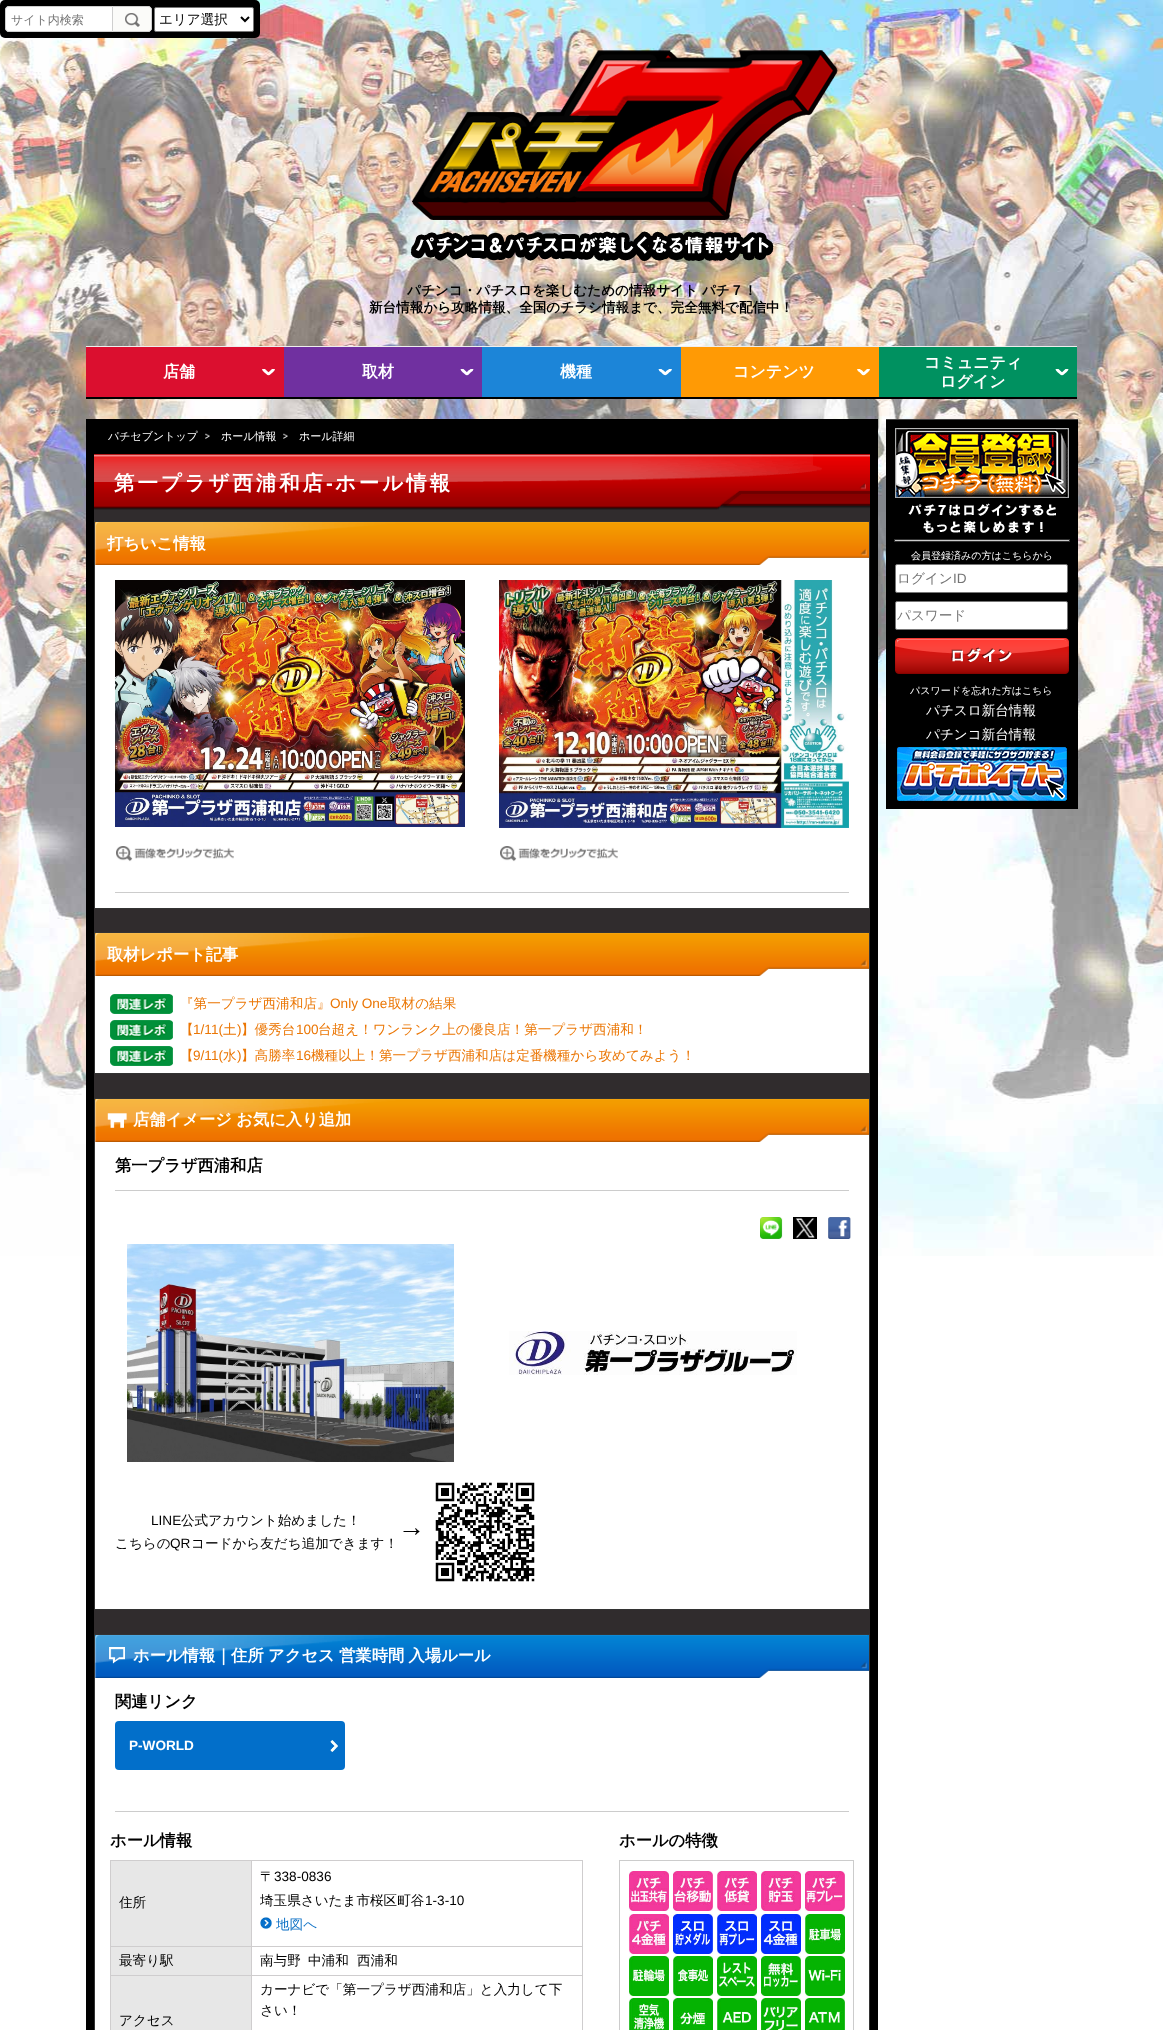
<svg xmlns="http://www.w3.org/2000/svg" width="1163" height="2030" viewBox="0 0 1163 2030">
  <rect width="100%" height="100%" fill="#ffffff"/>
  <image x="0" y="0" width="1163" height="1256" href="img1.png"/>
  <rect x="0" y="0" width="260" height="38" rx="5" fill="#000000"/>
  <path d="M9 6H112V32H9C7 32 5 30 5 28V10C5 8 7 6 9 6Z" fill="#ffffff"/>
  <path d="M9 6H112V32H9C7 32 5 30 5 28V10C5 8 7 6 9 6ZM9 7H112V31H9C7 31 6 30 6 28V10C6 8 7 7 9 7Z" fill="#cfcfcf" fill-rule="evenodd"/>
  <text x="11" y="24" font-family="WenQuanYi Zen Hei" font-size="12" font-weight="500" fill="#757575">サイト内検索</text>
  <path d="M112 6H148C150 6 152 8 152 10V28C152 30 150 32 148 32H112Z" fill="#fbfbf9"/>
  <image x="125" y="13" width="15" height="14" href="img2.png"/>
  <path d="M112.5 6.5H148C150 6.5 151.5 8 151.5 10V28C151.5 30 150 31.5 148 31.5H112.5Z" fill="none" stroke="#cfcfcf"/>
  <rect x="154.5" y="7.5" width="99" height="24" rx="1.5" fill="#ffffff" stroke="#767676"/>
  <path d="M241 17L245 21L249 17" fill="none" stroke="#000000" stroke-width="2"/>
  <text x="159" y="24" font-family="WenQuanYi Zen Hei" font-size="13.6" font-weight="500" fill="#000000">エリア選択</text>
  <image x="410" y="50" width="428" height="212" href="img3.png"/>
  <text x="407" y="295" font-family="WenQuanYi Zen Hei" font-size="13.6" font-weight="bold" fill="#000000">パチンコ・パチスロを楽しむための情報サイト パチ７！</text>
  <text x="369" y="312" font-family="WenQuanYi Zen Hei" font-size="13.6" font-weight="bold" fill="#000000">新台情報から攻略情報、全国のチラシ情報まで、完全無料で配信中！</text>
  <rect x="86" y="347" width="198" height="50" fill="#db0f2f"/>
  <rect x="86" y="346" width="991" height="1" fill="#eeeeee"/>
  <rect x="86" y="397" width="991" height="2" fill="#000000"/>
  <text x="163" y="377" font-family="WenQuanYi Zen Hei" font-size="16" font-weight="bold" fill="#ffffff">店舗</text>
  <path d="M273.5 369C273.5 370 272 371 271.5 371.5C268.5 374.5 268.5 374.5 265.5 371.5C265 371 263.5 370 263.5 369" fill="none" stroke="#ffffff" stroke-width="3"/>
  <rect x="284" y="347" width="198" height="50" fill="#7030a0"/>
  <text x="362" y="377" font-family="WenQuanYi Zen Hei" font-size="16" font-weight="bold" fill="#ffffff">取材</text>
  <path d="M472 369C472 370 470.5 371 469.5 371.5C467 374.5 467 374.5 464 371.5C463.5 371 462 370 462 369" fill="none" stroke="#ffffff" stroke-width="3"/>
  <rect x="482" y="347" width="199" height="50" fill="#1c85d8"/>
  <text x="560" y="377" font-family="WenQuanYi Zen Hei" font-size="16" font-weight="bold" fill="#ffffff">機種</text>
  <path d="M670.5 369C670.5 370 669 371 668 371.5C665 374.5 665.5 374.5 662.5 371.5C661.5 371 660 370 660 369" fill="none" stroke="#ffffff" stroke-width="3"/>
  <rect x="681" y="347" width="198" height="50" fill="#ff9a05"/>
  <text x="733" y="377" font-family="WenQuanYi Zen Hei" font-size="16" font-weight="bold" fill="#ffffff">コンテンツ</text>
  <path d="M868.5 369C868.5 370 867 371 866.5 371.5C863.5 374.5 863.5 374.5 861 371.5C860 371 858.5 370 858.5 369" fill="none" stroke="#ffffff" stroke-width="3"/>
  <rect x="879" y="347" width="198" height="50" fill="#009160"/>
  <text x="924" y="368" font-family="WenQuanYi Zen Hei" font-size="16" font-weight="bold" fill="#ffffff">コミュニティ</text>
  <text x="940" y="387" font-family="WenQuanYi Zen Hei" font-size="16" font-weight="bold" fill="#ffffff">ログイン</text>
  <path d="M1067 369C1067 370 1065.5 371 1065 371.5C1062 374.5 1062 374.5 1059 371.5C1058.5 371 1057 370 1057 369" fill="none" stroke="#ffffff" stroke-width="3"/>
  <rect x="94" y="454" width="776" height="1180" fill="#302c2d"/>
  <rect x="870" y="419" width="8" height="1611" fill="#000000"/>
  <rect x="86" y="419" width="8" height="1611" fill="#000000"/>
  <rect x="94" y="419" width="776" height="35" fill="#000000"/>
  <text x="108" y="440" font-family="WenQuanYi Zen Hei" font-size="11" font-weight="500" fill="#ffffff">パチセブントップ</text>
  <image x="205" y="433" width="5" height="6" href="img4.png"/>
  <text x="221" y="440" font-family="WenQuanYi Zen Hei" font-size="11" font-weight="500" fill="#ffffff">ホール情報</text>
  <image x="283" y="433" width="5" height="6" href="img4.png"/>
  <text x="299" y="440" font-family="WenQuanYi Zen Hei" font-size="11" font-weight="500" fill="#ffffff">ホール詳細</text>
  <image x="94" y="454" width="776" height="56" href="img5.png"/>
  <text x="114" y="490" font-family="WenQuanYi Zen Hei" font-size="20.4" font-weight="bold" letter-spacing="3" fill="#ffffff">第一プラザ西浦和店</text>
  <text x="326" y="490" font-family="Liberation Sans" font-size="20.4" font-weight="bold" letter-spacing="3" fill="#ffffff">-</text>
  <text x="335" y="490" font-family="WenQuanYi Zen Hei" font-size="20.4" font-weight="bold" letter-spacing="3" fill="#ffffff">ホール情報</text>
  <rect x="95" y="565" width="774" height="343" fill="#ffffff"/>
  <rect x="94.5" y="521.5" width="775" height="387" fill="none" stroke="#333333"/>
  <rect x="95" y="522" width="774" height="4" fill="#f39800"/>
  <image x="95" y="522" width="774" height="43" href="img6.png"/>
  <text x="107" y="549" font-family="WenQuanYi Zen Hei" font-size="16.3" font-weight="bold" fill="#ffffff">打ちいこ情報</text>
  <rect x="115" y="892" width="734" height="1" fill="#cccccc"/>
  <image x="115" y="580" width="350" height="247" href="img7.png"/>
  <image x="116" y="846" width="118" height="16" href="img8.png"/>
  <image x="499" y="580" width="350" height="248" href="img9.png"/>
  <image x="500" y="846" width="118" height="16" href="img8.png"/>
  <rect x="95" y="976" width="774" height="97" fill="#ffffff"/>
  <rect x="94.5" y="932.5" width="775" height="141" fill="none" stroke="#333333"/>
  <rect x="95" y="933" width="774" height="4" fill="#f39800"/>
  <image x="95" y="933" width="774" height="43" href="img6.png"/>
  <text x="107" y="960" font-family="WenQuanYi Zen Hei" font-size="16.3" font-weight="bold" fill="#ffffff">取材レポート記事</text>
  <image x="110" y="994" width="63" height="20" href="img10.png"/>
  <text x="180" y="1008" font-family="WenQuanYi Zen Hei" font-size="13.6" font-weight="500" fill="#eb7604">『第一プラザ西浦和店』</text>
  <text x="330" y="1008" font-family="Liberation Sans" font-size="13.6" fill="#eb7604">Only One</text>
  <text x="388" y="1008" font-family="WenQuanYi Zen Hei" font-size="13.6" font-weight="500" fill="#eb7604">取材の結果</text>
  <image x="110" y="1020" width="63" height="20" href="img10.png"/>
  <text x="180" y="1034" font-family="WenQuanYi Zen Hei" font-size="13.6" font-weight="500" fill="#eb7604">【</text>
  <text x="193" y="1034" font-family="Liberation Sans" font-size="13.6" fill="#eb7604">1/11(</text>
  <text x="223" y="1034" font-family="WenQuanYi Zen Hei" font-size="13.6" font-weight="500" fill="#eb7604">土</text>
  <text x="237" y="1034" font-family="Liberation Sans" font-size="13.6" fill="#eb7604">)</text>
  <text x="241" y="1034" font-family="WenQuanYi Zen Hei" font-size="13.6" font-weight="500" fill="#eb7604">】優秀台</text>
  <text x="296" y="1034" font-family="Liberation Sans" font-size="13.6" fill="#eb7604">100</text>
  <text x="318" y="1034" font-family="WenQuanYi Zen Hei" font-size="13.6" font-weight="500" fill="#eb7604">台超え！ワンランク上の優良店！第一プラザ西浦和！</text>
  <image x="110" y="1046" width="63" height="20" href="img10.png"/>
  <text x="180" y="1060" font-family="WenQuanYi Zen Hei" font-size="13.6" font-weight="500" fill="#eb7604">【</text>
  <text x="193" y="1060" font-family="Liberation Sans" font-size="13.6" fill="#eb7604">9/11(</text>
  <text x="223" y="1060" font-family="WenQuanYi Zen Hei" font-size="13.6" font-weight="500" fill="#eb7604">水</text>
  <text x="237" y="1060" font-family="Liberation Sans" font-size="13.6" fill="#eb7604">)</text>
  <text x="241" y="1060" font-family="WenQuanYi Zen Hei" font-size="13.6" font-weight="500" fill="#eb7604">】高勝率</text>
  <text x="296" y="1060" font-family="Liberation Sans" font-size="13.6" fill="#eb7604">16</text>
  <text x="311" y="1060" font-family="WenQuanYi Zen Hei" font-size="13.6" font-weight="500" fill="#eb7604">機種以上！第一プラザ西浦和店は定番機種から攻めてみよう！</text>
  <rect x="95" y="1142" width="774" height="467" fill="#ffffff"/>
  <rect x="94.5" y="1098.5" width="775" height="511" fill="none" stroke="#333333"/>
  <rect x="95" y="1099" width="774" height="4" fill="#f39800"/>
  <image x="95" y="1099" width="774" height="43" href="img6.png"/>
  <image x="107" y="1113" width="20" height="15" href="img11.png"/>
  <text x="133" y="1125" word-spacing="-0.5" font-family="WenQuanYi Zen Hei" font-size="16.3" font-weight="bold" fill="#ffffff">店舗イメージ お気に入り追加</text>
  <rect x="115" y="1190" width="734" height="1" fill="#cccccc"/>
  <text x="115" y="1171" font-family="WenQuanYi Zen Hei" font-size="16.3" font-weight="bold" fill="#000000">第一プラザ西浦和店</text>
  <image x="760" y="1217" width="23" height="22" href="img12.png"/>
  <image x="793" y="1217" width="24" height="22" href="img13.png"/>
  <image x="828" y="1217" width="23" height="22" href="img14.png"/>
  <image x="127" y="1244" width="327" height="218" href="img15.png"/>
  <image x="509" y="1331" width="288" height="44" href="img16.png"/>
  <text x="151" y="1525" font-family="Liberation Sans" font-size="13.6" fill="#000000">LINE</text>
  <text x="181" y="1525" font-family="WenQuanYi Zen Hei" font-size="13.6" font-weight="500" fill="#000000">公式アカウント始めました！</text>
  <text x="115" y="1548" font-family="WenQuanYi Zen Hei" font-size="13.6" font-weight="500" fill="#000000">こちらの</text>
  <text x="170" y="1548" font-family="Liberation Sans" font-size="13.6" fill="#000000">QR</text>
  <text x="191" y="1548" font-family="WenQuanYi Zen Hei" font-size="13.6" font-weight="500" fill="#000000">コードから友だち追加できます！</text>
  <text x="398" y="1536" font-family="Liberation Sans" font-size="27" fill="#000000">→</text>
  <image x="435" y="1482" width="100" height="100" href="img17.png"/>
  <rect x="94.5" y="1634.5" width="775" height="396" fill="none" stroke="#333333"/>
  <rect x="95" y="1635" width="774" height="4" fill="#0280d2"/>
  <image x="95" y="1635" width="774" height="43" href="img18.png"/>
  <image x="109" y="1647" width="16" height="17" href="img19.png"/>
  <text x="133" y="1661" word-spacing="-0.5" font-family="WenQuanYi Zen Hei" font-size="16.3" font-weight="bold" fill="#ffffff">ホール情報｜住所 アクセス 営業時間 入場ルール</text>
  <text x="115" y="1707" font-family="WenQuanYi Zen Hei" font-size="16.3" font-weight="bold" fill="#000000">関連リンク</text>
  <rect x="115" y="1811" width="734" height="1" fill="#cccccc"/>
  <rect x="115" y="1721" width="230" height="49" rx="4" fill="#026fca"/>
  <image x="330" y="1740" width="8" height="12" href="img20.png"/>
  <text x="129" y="1750" font-family="Liberation Sans" font-size="13.6" font-weight="bold" fill="#ffffff">P-WORLD</text>
  <text x="110" y="1846" font-family="WenQuanYi Zen Hei" font-size="16.3" font-weight="bold" fill="#000000">ホール情報</text>
  <rect x="111" y="1861" width="140" height="85" fill="#e7e7e7"/>
  <rect x="251" y="1860" width="332" height="1" fill="#cfcdce"/>
  <rect x="251" y="1946" width="332" height="1" fill="#cfcdce"/>
  <rect x="251" y="1975" width="332" height="1" fill="#cfcdce"/>
  <rect x="251" y="1975" width="1" height="55" fill="#cfcdce"/>
  <rect x="110" y="1975" width="142" height="1" fill="#cfcdce"/>
  <rect x="251" y="1946" width="1" height="30" fill="#cfcdce"/>
  <rect x="110" y="1946" width="142" height="1" fill="#cfcdce"/>
  <rect x="251" y="1860" width="1" height="87" fill="#cfcdce"/>
  <rect x="110" y="1860" width="142" height="1" fill="#cfcdce"/>
  <rect x="110" y="1975" width="1" height="55" fill="#cfcdce"/>
  <rect x="110" y="1946" width="1" height="30" fill="#cfcdce"/>
  <rect x="110" y="1860" width="1" height="87" fill="#cfcdce"/>
  <text x="119" y="1907" font-family="WenQuanYi Zen Hei" font-size="13.6" font-weight="500" fill="#000000">住所</text>
  <rect x="582" y="1975" width="1" height="55" fill="#cfcdce"/>
  <rect x="582" y="1946" width="1" height="30" fill="#cfcdce"/>
  <rect x="582" y="1860" width="1" height="87" fill="#cfcdce"/>
  <text x="260" y="1881" font-family="WenQuanYi Zen Hei" font-size="13.6" font-weight="500" fill="#000000">〒</text>
  <text x="274" y="1881" font-family="Liberation Sans" font-size="13.6" fill="#000000">338-0836</text>
  <text x="260" y="1905" font-family="WenQuanYi Zen Hei" font-size="13.6" font-weight="500" fill="#000000">埼玉県さいたま市桜区町谷</text>
  <text x="425" y="1905" font-family="Liberation Sans" font-size="13.6" fill="#000000">1-3-10</text>
  <image x="260" y="1917" width="12" height="12" href="img21.png"/>
  <text x="276" y="1929" font-family="WenQuanYi Zen Hei" font-size="13.6" font-weight="500" fill="#0c70c5">地図へ</text>
  <rect x="111" y="1947" width="140" height="28" fill="#e7e7e7"/>
  <text x="119" y="1965" font-family="WenQuanYi Zen Hei" font-size="13.6" font-weight="500" fill="#000000">最寄り駅</text>
  <text x="260" y="1965" font-family="WenQuanYi Zen Hei" font-size="13.6" font-weight="500" fill="#000000">南与野</text>
  <text x="308" y="1965" font-family="WenQuanYi Zen Hei" font-size="13.6" font-weight="500" fill="#000000">中浦和</text>
  <text x="357" y="1965" font-family="WenQuanYi Zen Hei" font-size="13.6" font-weight="500" fill="#000000">西浦和</text>
  <text x="260" y="1994" font-family="WenQuanYi Zen Hei" font-size="13.6" font-weight="500" fill="#000000">カーナビで「第一プラザ西浦和店」と入力して下</text>
  <text x="260" y="2015" font-family="WenQuanYi Zen Hei" font-size="13.6" font-weight="500" fill="#000000">さい！</text>
  <rect x="111" y="1976" width="140" height="54" fill="#e7e7e7"/>
  <text x="119" y="2025" font-family="WenQuanYi Zen Hei" font-size="13.6" font-weight="500" fill="#000000">アクセス</text>
  <text x="619" y="1846" font-family="WenQuanYi Zen Hei" font-size="16.3" font-weight="bold" fill="#000000">ホールの特徴</text>
  <rect x="619.5" y="1860.5" width="234" height="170" fill="none" stroke="#cccccc"/>
  <image x="629" y="1871" width="40" height="40" href="img22.png"/>
  <image x="673" y="1871" width="40" height="40" href="img23.png"/>
  <image x="717" y="1871" width="40" height="40" href="img24.png"/>
  <image x="761" y="1871" width="40" height="40" href="img25.png"/>
  <image x="805" y="1871" width="40" height="40" href="img26.png"/>
  <image x="629" y="1914" width="40" height="40" href="img27.png"/>
  <image x="673" y="1914" width="40" height="40" href="img28.png"/>
  <image x="717" y="1914" width="40" height="40" href="img29.png"/>
  <image x="761" y="1914" width="40" height="40" href="img30.png"/>
  <image x="805" y="1914" width="40" height="40" href="img31.png"/>
  <image x="629" y="1956" width="40" height="40" href="img32.png"/>
  <image x="673" y="1956" width="40" height="40" href="img33.png"/>
  <image x="717" y="1956" width="40" height="40" href="img34.png"/>
  <image x="761" y="1956" width="40" height="40" href="img35.png"/>
  <image x="805" y="1956" width="40" height="40" href="img36.png"/>
  <image x="629" y="1998" width="40" height="32" href="img37.png"/>
  <image x="673" y="1998" width="40" height="32" href="img38.png"/>
  <image x="717" y="1998" width="40" height="32" href="img39.png"/>
  <image x="761" y="1998" width="40" height="32" href="img40.png"/>
  <image x="805" y="1998" width="40" height="32" href="img41.png"/>
  <rect x="886" y="420" width="192" height="389" fill="#000000"/>
  <rect x="886" y="419" width="192" height="1" fill="#414141"/>
  <image x="895" y="428" width="174" height="70" href="img42.png"/>
  <image x="908" y="503" width="148" height="31" href="img43.png"/>
  <rect x="894.5" y="539.5" width="175" height="2" fill="#cccccc" stroke="#333333"/>
  <text x="911" y="559" font-family="WenQuanYi Zen Hei" font-size="10" font-weight="500" fill="#ffffff">会員登録済みの方はこちらから</text>
  <rect x="895.5" y="564.5" width="172" height="28" rx="1.5" fill="#ffffff" stroke="#767676"/>
  <text x="897" y="583" font-family="WenQuanYi Zen Hei" font-size="13.6" font-weight="500" fill="#757575">ログイン</text>
  <text x="953" y="583" font-family="Liberation Sans" font-size="13.6" fill="#757575">ID</text>
  <rect x="895.5" y="601.5" width="172" height="28" rx="1.5" fill="#ffffff" stroke="#767676"/>
  <text x="897" y="620" font-family="WenQuanYi Zen Hei" font-size="13.6" font-weight="500" fill="#757575">パスワード</text>
  <image x="895" y="638" width="174" height="36" href="img44.png"/>
  <text x="910" y="694" font-family="WenQuanYi Zen Hei" font-size="10" font-weight="500" fill="#ffffff">パスワードを忘れた方はこちら</text>
  <text x="926" y="715" font-family="WenQuanYi Zen Hei" font-size="13.6" font-weight="500" fill="#ffffff">パチスロ新台情報</text>
  <text x="926" y="739" font-family="WenQuanYi Zen Hei" font-size="13.6" font-weight="500" fill="#ffffff">パチンコ新台情報</text>
  <image x="897" y="747" width="170" height="54" href="img45.png"/>
</svg>
